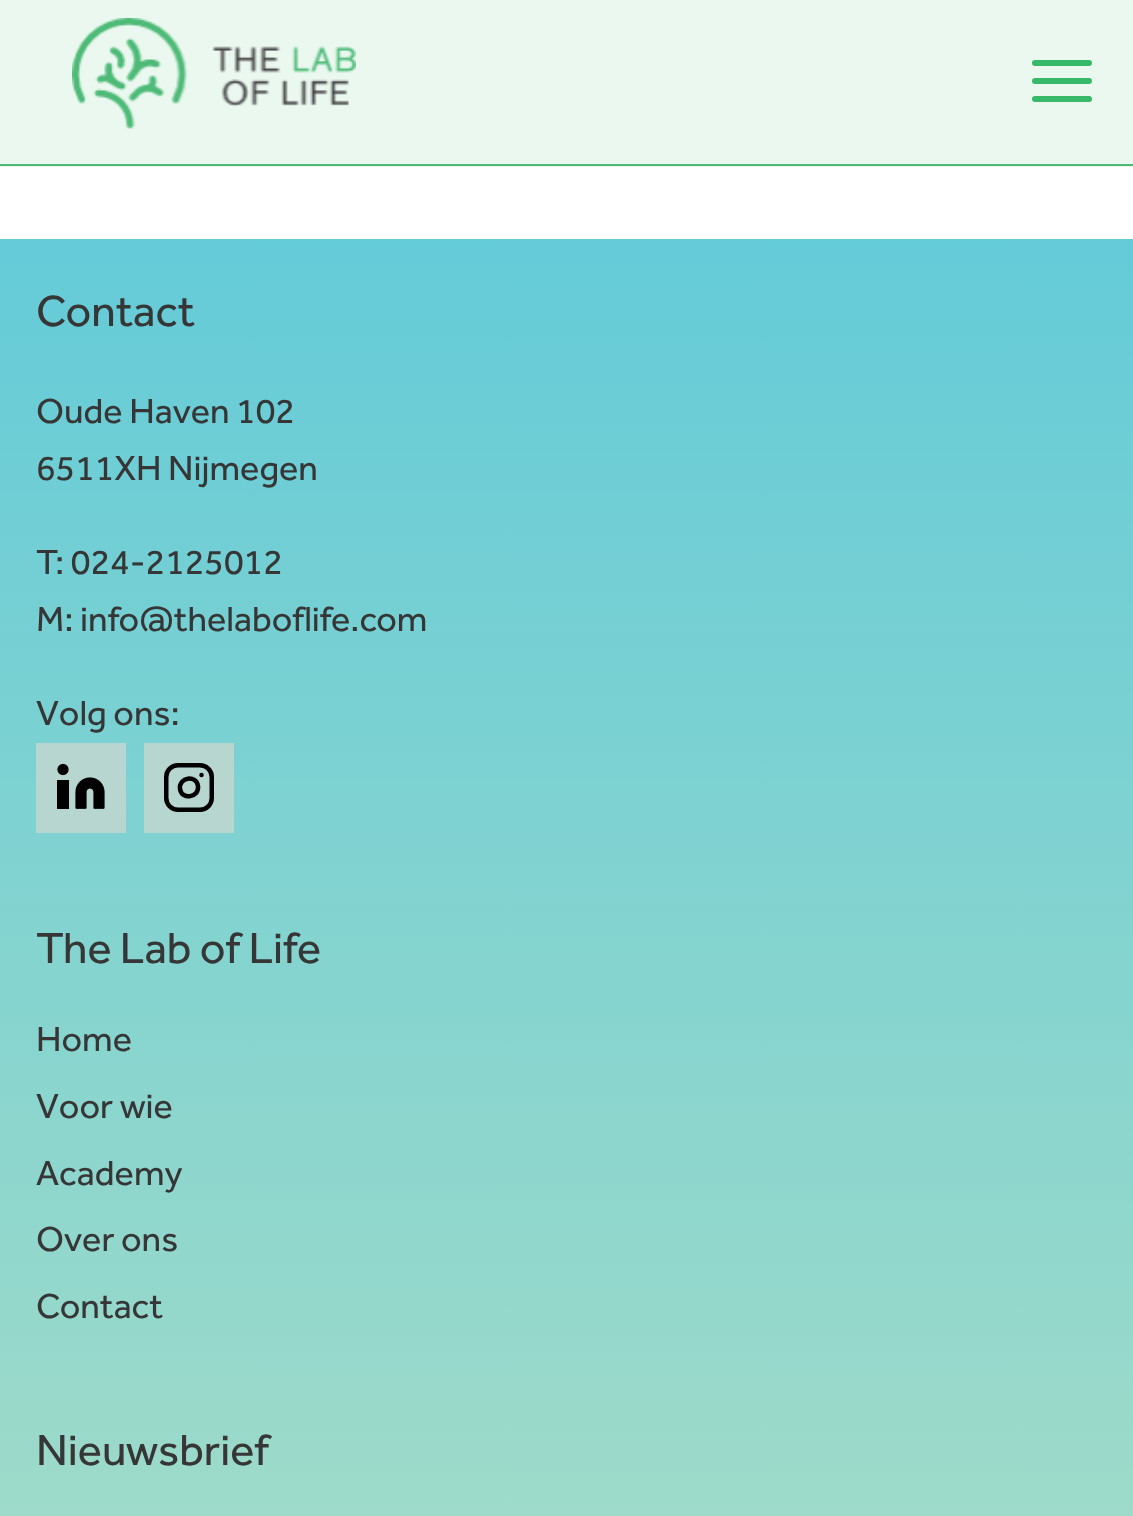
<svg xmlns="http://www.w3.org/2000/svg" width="1133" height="1516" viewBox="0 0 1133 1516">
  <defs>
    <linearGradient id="g1" gradientUnits="userSpaceOnUse" x1="567" y1="238" x2="567" y2="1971"><stop offset="0" stop-color="#64cbd8"/><stop offset="1" stop-color="#b2e0c4"/></linearGradient>
  </defs>
  <rect width="100%" height="100%" fill="#ffffff"/>
  <rect x="0" y="0" width="1133" height="167" fill="#ebf8f0"/>
  <rect x="0" y="164" width="1133" height="2" fill="#4aba75"/>
  <image x="72" y="18" width="284" height="111" href="img1.png"/>
  <path d="M1035 81H1089M1035 63H1089M1035 99H1089" fill="none" stroke="#37b969" stroke-width="6" stroke-linecap="round" stroke-linejoin="round"/>
  <rect x="0" y="239" width="1133" height="1277" fill="url(#g1)"/>
  <text x="36" y="326" font-family="'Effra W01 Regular'" font-size="45" fill="#363636">Contact</text>
  <text x="36" y="423" font-family="'Effra W01 Regular'" font-size="36" fill="#363636">Oude Haven 102</text>
  <text x="36" y="480" font-family="'Effra W01 Regular'" font-size="36" fill="#363636">6511XH Nijmegen</text>
  <text x="36" y="574" font-family="'Effra W01 Regular'" font-size="36" fill="#363636">T: 024-2125012</text>
  <text x="36" y="631" font-family="'Effra W01 Regular'" font-size="36" fill="#363636">M: info@thelaboflife.com</text>
  <text x="36" y="725" font-family="'Effra W01 Regular'" font-size="36" fill="#363636">Volg ons:</text>
  <rect x="36" y="743" width="90" height="90" fill="#b8d6d0"/>
  <image x="57" y="763" width="48" height="46" href="img2.png"/>
  <rect x="144" y="743" width="90" height="90" fill="#b8d6d0"/>
  <rect x="166.25" y="765.25" width="45.5" height="44.5" rx="11.75" fill="none" stroke="#000000" stroke-width="4.5"/>
  <path d="M198 786C199.5 797.5 182 800.5 180 789C178.5 777 196.5 774.5 198 786ZM201.5 775H201.5" fill="none" stroke="#000000" stroke-width="4.5" stroke-linecap="round" stroke-linejoin="round"/>
  <text x="36" y="963" font-family="'Effra W01 Regular'" font-size="45" fill="#363636">The Lab of Life</text>
  <text x="36" y="1051" font-family="'Effra W01 Regular'" font-size="36" fill="#363636">Home</text>
  <text x="36" y="1118" font-family="'Effra W01 Regular'" font-size="36" fill="#363636">Voor wie</text>
  <text x="36" y="1185" font-family="'Effra W01 Regular'" font-size="36" fill="#363636">Academy</text>
  <text x="36" y="1251" font-family="'Effra W01 Regular'" font-size="36" fill="#363636">Over ons</text>
  <text x="36" y="1318" font-family="'Effra W01 Regular'" font-size="36" fill="#363636">Contact</text>
  <text x="36" y="1465" font-family="'Effra W01 Regular'" font-size="45" fill="#363636">Nieuwsbrief</text>
</svg>
